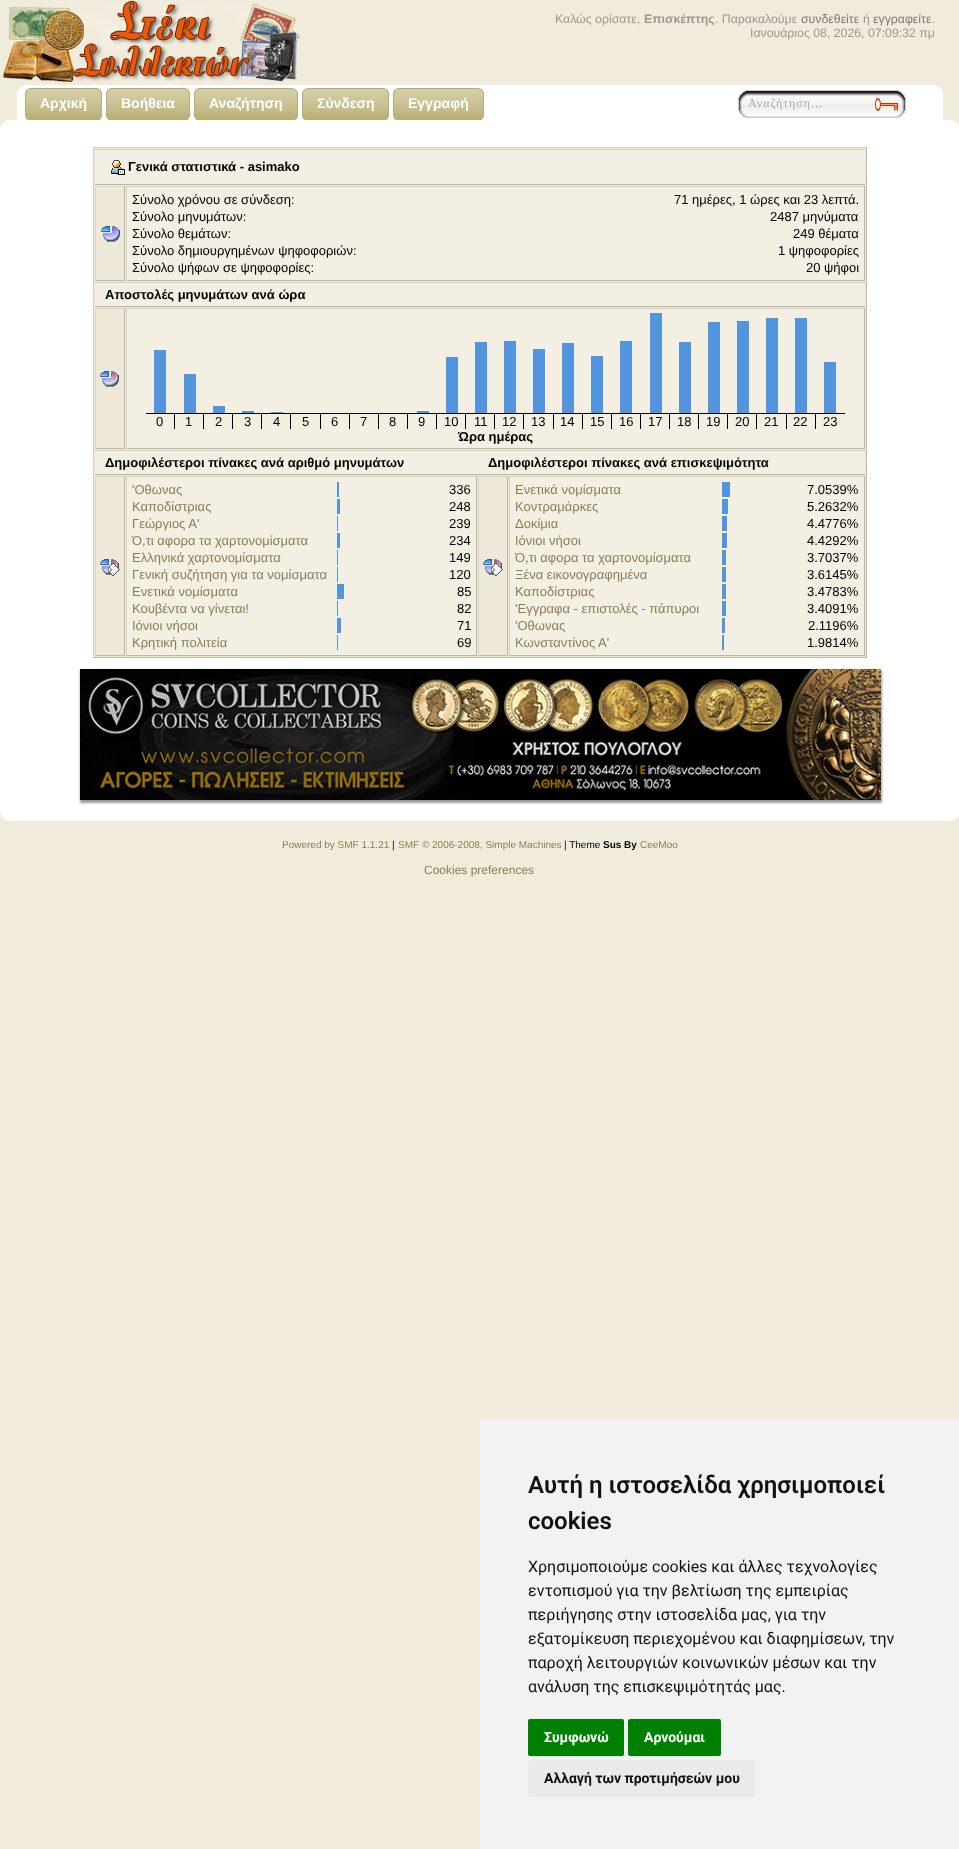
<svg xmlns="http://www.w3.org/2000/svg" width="959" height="1849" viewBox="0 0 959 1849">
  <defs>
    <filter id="blur1" x="-50%" y="-200%" width="200%" height="500%"><feGaussianBlur stdDeviation="1"/></filter>
  </defs>
  <rect width="100%" height="100%" fill="#f1ebdc"/>
  <image x="3" y="0" width="297" height="85" href="img1.png"/>
  <text x="555" y="23" font-family="Liberation Sans" font-size="12.3" fill="#9d988c">Καλώς ορίσατε,</text>
  <text x="644" y="23" font-family="Liberation Sans" font-size="12.3" font-weight="bold" fill="#9d988c">Επισκέπτης</text>
  <text x="715" y="23" font-family="Liberation Sans" font-size="12.3" fill="#9d988c">. Παρακαλούμε</text>
  <text x="801" y="23" font-family="Liberation Sans" font-size="12.3" fill="#7f7b71">συνδεθείτε</text>
  <text x="863" y="23" font-family="Liberation Sans" font-size="12.3" fill="#9d988c">ή</text>
  <text x="873" y="23" font-family="Liberation Sans" font-size="12.3" fill="#7f7b71">εγγραφείτε</text>
  <text x="932" y="23" font-family="Liberation Sans" font-size="12.3" fill="#9d988c">.</text>
  <text x="750" y="37" font-family="Liberation Sans" font-size="12.3" fill="#9d988c">Ιανουάριος 08, 2026, 07:09:32 πμ</text>
  <image x="0" y="85" width="25" height="35" href="img2.png"/>
  <rect x="25" y="85" width="909" height="35" fill="#ffffff"/>
  <image x="934" y="85" width="25" height="35" href="img3.png"/>
  <image x="25" y="88" width="20" height="32" href="img4.png"/>
  <image x="45" y="88" width="57" height="32" href="img5.png"/>
  <text x="40" y="108" font-family="Liberation Sans" font-size="14" font-weight="bold" fill="#ffffff">Αρχική</text>
  <image x="106" y="88" width="20" height="32" href="img4.png"/>
  <image x="126" y="88" width="64" height="32" href="img6.png"/>
  <text x="121" y="108" font-family="Liberation Sans" font-size="14" font-weight="bold" fill="#ffffff">Βοήθεια</text>
  <image x="194" y="88" width="20" height="32" href="img4.png"/>
  <image x="214" y="88" width="84" height="32" href="img7.png"/>
  <text x="209" y="108" font-family="Liberation Sans" font-size="14" font-weight="bold" fill="#ffffff">Αναζήτηση</text>
  <image x="302" y="88" width="20" height="32" href="img4.png"/>
  <image x="322" y="88" width="67" height="32" href="img8.png"/>
  <text x="317" y="108" font-family="Liberation Sans" font-size="14" font-weight="bold" fill="#ffffff">Σύνδεση</text>
  <image x="393" y="88" width="20" height="32" href="img4.png"/>
  <image x="413" y="88" width="71" height="32" href="img9.png"/>
  <text x="408" y="108" font-family="Liberation Sans" font-size="14" font-weight="bold" fill="#ffffff">Εγγραφή</text>
  <image x="738" y="90" width="168" height="28" href="img10.png"/>
  <text x="748" y="107" font-family="Liberation Serif" font-size="12" letter-spacing="1" fill="#aca79a">Αναζήτηση...</text>
  <rect x="0" y="120" width="959" height="701" fill="#ffffff"/>
  <image x="951" y="816" width="8" height="5" href="img11.png"/>
  <image x="0" y="812" width="9" height="9" href="img12.png"/>
  <image x="951" y="120" width="8" height="5" href="img13.png"/>
  <image x="0" y="120" width="9" height="9" href="img14.png"/>
  <rect x="94" y="148" width="772" height="509" fill="#eee8d8"/>
  <rect x="93" y="147" width="774" height="1" fill="#d4cfc2"/>
  <rect x="866" y="147" width="1" height="511" fill="#beb8a8"/>
  <rect x="93" y="657" width="774" height="1" fill="#beb8a8"/>
  <rect x="93" y="147" width="1" height="511" fill="#d4cfc2"/>
  <rect x="95" y="150" width="770" height="34" fill="#f4efe3"/>
  <rect x="95" y="149" width="770" height="1" fill="#d4cfc2"/>
  <rect x="95" y="184" width="770" height="1" fill="#beb8a8"/>
  <image x="111" y="160" width="14" height="15" href="img15.png"/>
  <text x="128" y="171" font-family="Liberation Sans" font-size="13" font-weight="bold" fill="#000000">Γενικά στατιστικά - asimako</text>
  <rect x="95" y="186" width="30" height="1" fill="#dcd7c9"/>
  <rect x="124" y="186" width="1" height="95" fill="#beb8a8"/>
  <rect x="95" y="280" width="30" height="1" fill="#beb8a8"/>
  <rect x="95" y="186" width="1" height="95" fill="#dcd7c9"/>
  <image x="101" y="226" width="19" height="16" href="img16.png"/>
  <rect x="127" y="187" width="737" height="93" fill="#f4efe3"/>
  <rect x="126" y="186" width="739" height="1" fill="#d4cfc2"/>
  <rect x="864" y="186" width="1" height="95" fill="#beb8a8"/>
  <rect x="126" y="280" width="739" height="1" fill="#beb8a8"/>
  <rect x="126" y="186" width="1" height="95" fill="#d4cfc2"/>
  <text x="132" y="204" font-family="Liberation Sans" font-size="13" fill="#000000">Σύνολο χρόνου σε σύνδεση:</text>
  <text x="674" y="204" font-family="Liberation Sans" font-size="13" fill="#000000">71 ημέρες, 1 ώρες και 23 λεπτά.</text>
  <text x="132" y="221" font-family="Liberation Sans" font-size="13" fill="#000000">Σύνολο μηνυμάτων:</text>
  <text x="770" y="221" font-family="Liberation Sans" font-size="13" fill="#000000">2487 μηνύματα</text>
  <text x="132" y="238" font-family="Liberation Sans" font-size="13" fill="#000000">Σύνολο θεμάτων:</text>
  <text x="793" y="238" font-family="Liberation Sans" font-size="13" fill="#000000">249 θέματα</text>
  <text x="132" y="255" font-family="Liberation Sans" font-size="13" fill="#000000">Σύνολο δημιουργημένων ψηφοφοριών:</text>
  <text x="778" y="255" font-family="Liberation Sans" font-size="13" fill="#000000">1 ψηφοφορίες</text>
  <text x="132" y="272" font-family="Liberation Sans" font-size="13" fill="#000000">Σύνολο ψήφων σε ψηφοφορίες:</text>
  <text x="806" y="272" font-family="Liberation Sans" font-size="13" fill="#000000">20 ψήφοι</text>
  <rect x="95" y="283" width="770" height="23" fill="#f4efe3"/>
  <rect x="95" y="282" width="770" height="1" fill="#d4cfc2"/>
  <rect x="95" y="306" width="770" height="1" fill="#beb8a8"/>
  <text x="105" y="299" font-family="Liberation Sans" font-size="13" font-weight="bold" fill="#000000">Αποστολές μηνυμάτων ανά ώρα</text>
  <rect x="95" y="308" width="30" height="1" fill="#dcd7c9"/>
  <rect x="124" y="308" width="1" height="141" fill="#beb8a8"/>
  <rect x="95" y="448" width="30" height="1" fill="#beb8a8"/>
  <rect x="95" y="308" width="1" height="141" fill="#dcd7c9"/>
  <image x="100" y="371" width="19" height="16" href="img17.png"/>
  <rect x="127" y="309" width="737" height="139" fill="#f4efe3"/>
  <rect x="126" y="308" width="739" height="1" fill="#d4cfc2"/>
  <rect x="864" y="308" width="1" height="141" fill="#beb8a8"/>
  <rect x="126" y="448" width="739" height="1" fill="#beb8a8"/>
  <rect x="126" y="308" width="1" height="141" fill="#d4cfc2"/>
  <rect x="154" y="350" width="12" height="63" fill="#5294de"/>
  <rect x="184" y="374" width="12" height="39" fill="#5294de"/>
  <rect x="213" y="406" width="12" height="7" fill="#5294de"/>
  <rect x="242" y="411" width="12" height="2" fill="#5294de"/>
  <rect x="271" y="412" width="12" height="1" fill="#5294de"/>
  <rect x="417" y="411" width="12" height="2" fill="#5294de"/>
  <rect x="446" y="357" width="12" height="56" fill="#5294de"/>
  <rect x="475" y="342" width="12" height="71" fill="#5294de"/>
  <rect x="504" y="341" width="12" height="72" fill="#5294de"/>
  <rect x="533" y="349" width="12" height="64" fill="#5294de"/>
  <rect x="562" y="343" width="12" height="70" fill="#5294de"/>
  <rect x="591" y="356" width="12" height="57" fill="#5294de"/>
  <rect x="620" y="341" width="12" height="72" fill="#5294de"/>
  <rect x="650" y="313" width="12" height="100" fill="#5294de"/>
  <rect x="679" y="342" width="12" height="71" fill="#5294de"/>
  <rect x="708" y="322" width="12" height="91" fill="#5294de"/>
  <rect x="737" y="321" width="12" height="92" fill="#5294de"/>
  <rect x="766" y="318" width="12" height="95" fill="#5294de"/>
  <rect x="795" y="318" width="12" height="95" fill="#5294de"/>
  <rect x="824" y="362" width="12" height="51" fill="#5294de"/>
  <rect x="146" y="413" width="699" height="1" fill="#000000"/>
  <rect x="174" y="413" width="1" height="16" fill="#000000"/>
  <text x="156" y="426" font-family="Liberation Sans" font-size="13" fill="#000000">0</text>
  <rect x="203" y="413" width="1" height="16" fill="#000000"/>
  <text x="185" y="426" font-family="Liberation Sans" font-size="13" fill="#000000">1</text>
  <rect x="232" y="413" width="1" height="16" fill="#000000"/>
  <text x="215" y="426" font-family="Liberation Sans" font-size="13" fill="#000000">2</text>
  <rect x="261" y="413" width="1" height="16" fill="#000000"/>
  <text x="244" y="426" font-family="Liberation Sans" font-size="13" fill="#000000">3</text>
  <rect x="290" y="413" width="1" height="16" fill="#000000"/>
  <text x="273" y="426" font-family="Liberation Sans" font-size="13" fill="#000000">4</text>
  <rect x="320" y="413" width="1" height="16" fill="#000000"/>
  <text x="302" y="426" font-family="Liberation Sans" font-size="13" fill="#000000">5</text>
  <rect x="349" y="413" width="1" height="16" fill="#000000"/>
  <text x="331" y="426" font-family="Liberation Sans" font-size="13" fill="#000000">6</text>
  <rect x="378" y="413" width="1" height="16" fill="#000000"/>
  <text x="360" y="426" font-family="Liberation Sans" font-size="13" fill="#000000">7</text>
  <rect x="407" y="413" width="1" height="16" fill="#000000"/>
  <text x="389" y="426" font-family="Liberation Sans" font-size="13" fill="#000000">8</text>
  <rect x="436" y="413" width="1" height="16" fill="#000000"/>
  <text x="418" y="426" font-family="Liberation Sans" font-size="13" fill="#000000">9</text>
  <rect x="465" y="413" width="1" height="16" fill="#000000"/>
  <text x="444" y="426" font-family="Liberation Sans" font-size="13" fill="#000000">10</text>
  <rect x="494" y="413" width="1" height="16" fill="#000000"/>
  <text x="474" y="426" font-family="Liberation Sans" font-size="13" fill="#000000">11</text>
  <rect x="523" y="413" width="1" height="16" fill="#000000"/>
  <text x="502" y="426" font-family="Liberation Sans" font-size="13" fill="#000000">12</text>
  <rect x="553" y="413" width="1" height="16" fill="#000000"/>
  <text x="531" y="426" font-family="Liberation Sans" font-size="13" fill="#000000">13</text>
  <rect x="582" y="413" width="1" height="16" fill="#000000"/>
  <text x="560" y="426" font-family="Liberation Sans" font-size="13" fill="#000000">14</text>
  <rect x="611" y="413" width="1" height="16" fill="#000000"/>
  <text x="590" y="426" font-family="Liberation Sans" font-size="13" fill="#000000">15</text>
  <rect x="640" y="413" width="1" height="16" fill="#000000"/>
  <text x="619" y="426" font-family="Liberation Sans" font-size="13" fill="#000000">16</text>
  <rect x="669" y="413" width="1" height="16" fill="#000000"/>
  <text x="648" y="426" font-family="Liberation Sans" font-size="13" fill="#000000">17</text>
  <rect x="698" y="413" width="1" height="16" fill="#000000"/>
  <text x="677" y="426" font-family="Liberation Sans" font-size="13" fill="#000000">18</text>
  <rect x="727" y="413" width="1" height="16" fill="#000000"/>
  <text x="706" y="426" font-family="Liberation Sans" font-size="13" fill="#000000">19</text>
  <rect x="756" y="413" width="1" height="16" fill="#000000"/>
  <text x="735" y="426" font-family="Liberation Sans" font-size="13" fill="#000000">20</text>
  <rect x="786" y="413" width="1" height="16" fill="#000000"/>
  <text x="764" y="426" font-family="Liberation Sans" font-size="13" fill="#000000">21</text>
  <rect x="815" y="413" width="1" height="16" fill="#000000"/>
  <text x="793" y="426" font-family="Liberation Sans" font-size="13" fill="#000000">22</text>
  <text x="823" y="426" font-family="Liberation Sans" font-size="13" fill="#000000">23</text>
  <text x="458" y="441" font-family="Liberation Sans" font-size="13" font-weight="bold" fill="#000000">Ώρα ημέρας</text>
  <rect x="95" y="451" width="770" height="23" fill="#f4efe3"/>
  <rect x="95" y="450" width="770" height="1" fill="#d4cfc2"/>
  <rect x="95" y="474" width="770" height="1" fill="#beb8a8"/>
  <text x="105" y="467" font-family="Liberation Sans" font-size="13" font-weight="bold" fill="#000000">Δημοφιλέστεροι πίνακες ανά αριθμό μηνυμάτων</text>
  <text x="488" y="467" font-family="Liberation Sans" font-size="13" font-weight="bold" fill="#000000">Δημοφιλέστεροι πίνακες ανά επισκεψιμότητα</text>
  <rect x="95" y="476" width="30" height="1" fill="#dcd7c9"/>
  <rect x="124" y="476" width="1" height="180" fill="#beb8a8"/>
  <rect x="95" y="655" width="30" height="1" fill="#beb8a8"/>
  <rect x="95" y="476" width="1" height="180" fill="#dcd7c9"/>
  <image x="100" y="559" width="20" height="17" href="img18.png"/>
  <rect x="127" y="477" width="349" height="178" fill="#f4efe3"/>
  <rect x="126" y="476" width="351" height="1" fill="#d4cfc2"/>
  <rect x="476" y="476" width="1" height="180" fill="#beb8a8"/>
  <rect x="126" y="655" width="351" height="1" fill="#beb8a8"/>
  <rect x="126" y="476" width="1" height="180" fill="#d4cfc2"/>
  <text x="132" y="494" font-family="Liberation Sans" font-size="13" fill="#8b7c52">'Οθωνας</text>
  <rect x="337" y="482" width="2" height="15" fill="#5294de"/>
  <text x="449" y="494" font-family="Liberation Sans" font-size="13" fill="#000000">336</text>
  <text x="132" y="511" font-family="Liberation Sans" font-size="13" fill="#8b7c52">Καποδίστριας</text>
  <rect x="337" y="499" width="3" height="15" fill="#5294de"/>
  <text x="449" y="511" font-family="Liberation Sans" font-size="13" fill="#000000">248</text>
  <text x="132" y="528" font-family="Liberation Sans" font-size="13" fill="#8b7c52">Γεώργιος Α'</text>
  <rect x="337" y="516" width="1" height="15" fill="#5294de"/>
  <text x="449" y="528" font-family="Liberation Sans" font-size="13" fill="#000000">239</text>
  <text x="132" y="545" font-family="Liberation Sans" font-size="13" fill="#8b7c52">Ό,τι αφορα τα χαρτονομίσματα</text>
  <rect x="337" y="533" width="3" height="15" fill="#5294de"/>
  <text x="449" y="545" font-family="Liberation Sans" font-size="13" fill="#000000">234</text>
  <text x="132" y="562" font-family="Liberation Sans" font-size="13" fill="#8b7c52">Ελληνικά χαρτονομίσματα</text>
  <rect x="337" y="550" width="1" height="15" fill="#5294de"/>
  <text x="449" y="562" font-family="Liberation Sans" font-size="13" fill="#000000">149</text>
  <text x="132" y="579" font-family="Liberation Sans" font-size="13" fill="#8b7c52">Γενική συζήτηση για τα νομίσματα</text>
  <rect x="337" y="567" width="1" height="15" fill="#5294de"/>
  <text x="449" y="579" font-family="Liberation Sans" font-size="13" fill="#000000">120</text>
  <text x="132" y="596" font-family="Liberation Sans" font-size="13" fill="#8b7c52">Ενετικά νομίσματα</text>
  <rect x="337" y="584" width="7" height="15" fill="#5294de"/>
  <text x="457" y="596" font-family="Liberation Sans" font-size="13" fill="#000000">85</text>
  <text x="132" y="613" font-family="Liberation Sans" font-size="13" fill="#8b7c52">Κουβέντα να γίνεται!</text>
  <rect x="337" y="601" width="1" height="15" fill="#5294de"/>
  <text x="457" y="613" font-family="Liberation Sans" font-size="13" fill="#000000">82</text>
  <text x="132" y="630" font-family="Liberation Sans" font-size="13" fill="#8b7c52">Ιόνιοι νήσοι</text>
  <rect x="337" y="618" width="4" height="15" fill="#5294de"/>
  <text x="457" y="630" font-family="Liberation Sans" font-size="13" fill="#000000">71</text>
  <text x="132" y="647" font-family="Liberation Sans" font-size="13" fill="#8b7c52">Κρητική πολιτεία</text>
  <rect x="337" y="635" width="1" height="15" fill="#5294de"/>
  <text x="457" y="647" font-family="Liberation Sans" font-size="13" fill="#000000">69</text>
  <rect x="478" y="476" width="30" height="1" fill="#dcd7c9"/>
  <rect x="507" y="476" width="1" height="180" fill="#beb8a8"/>
  <rect x="478" y="655" width="30" height="1" fill="#beb8a8"/>
  <rect x="478" y="476" width="1" height="180" fill="#dcd7c9"/>
  <image x="483" y="559" width="20" height="17" href="img18.png"/>
  <rect x="510" y="477" width="354" height="178" fill="#f4efe3"/>
  <rect x="509" y="476" width="356" height="1" fill="#d4cfc2"/>
  <rect x="864" y="476" width="1" height="180" fill="#beb8a8"/>
  <rect x="509" y="655" width="356" height="1" fill="#beb8a8"/>
  <rect x="509" y="476" width="1" height="180" fill="#d4cfc2"/>
  <text x="515" y="494" font-family="Liberation Sans" font-size="13" fill="#8b7c52">Ενετικά νομίσματα</text>
  <rect x="722" y="482" width="8" height="15" fill="#5294de"/>
  <text x="807" y="494" font-family="Liberation Sans" font-size="13" fill="#000000">7.0539%</text>
  <text x="515" y="511" font-family="Liberation Sans" font-size="13" fill="#8b7c52">Κοντραμάρκες</text>
  <rect x="722" y="499" width="6" height="15" fill="#5294de"/>
  <text x="807" y="511" font-family="Liberation Sans" font-size="13" fill="#000000">5.2632%</text>
  <text x="515" y="528" font-family="Liberation Sans" font-size="13" fill="#8b7c52">Δοκίμια</text>
  <rect x="722" y="516" width="5" height="15" fill="#5294de"/>
  <text x="807" y="528" font-family="Liberation Sans" font-size="13" fill="#000000">4.4776%</text>
  <text x="515" y="545" font-family="Liberation Sans" font-size="13" fill="#8b7c52">Ιόνιοι νήσοι</text>
  <rect x="722" y="533" width="5" height="15" fill="#5294de"/>
  <text x="807" y="545" font-family="Liberation Sans" font-size="13" fill="#000000">4.4292%</text>
  <text x="515" y="562" font-family="Liberation Sans" font-size="13" fill="#8b7c52">Ό,τι αφορα τα χαρτονομίσματα</text>
  <rect x="722" y="550" width="4" height="15" fill="#5294de"/>
  <text x="807" y="562" font-family="Liberation Sans" font-size="13" fill="#000000">3.7037%</text>
  <text x="515" y="579" font-family="Liberation Sans" font-size="13" fill="#8b7c52">Ξένα εικονογραφημένα</text>
  <rect x="722" y="567" width="4" height="15" fill="#5294de"/>
  <text x="807" y="579" font-family="Liberation Sans" font-size="13" fill="#000000">3.6145%</text>
  <text x="515" y="596" font-family="Liberation Sans" font-size="13" fill="#8b7c52">Καποδίστριας</text>
  <rect x="722" y="584" width="4" height="15" fill="#5294de"/>
  <text x="807" y="596" font-family="Liberation Sans" font-size="13" fill="#000000">3.4783%</text>
  <text x="515" y="613" font-family="Liberation Sans" font-size="13" fill="#8b7c52">'Εγγραφα - επιστολές - πάπυροι</text>
  <rect x="722" y="601" width="4" height="15" fill="#5294de"/>
  <text x="807" y="613" font-family="Liberation Sans" font-size="13" fill="#000000">3.4091%</text>
  <text x="515" y="630" font-family="Liberation Sans" font-size="13" fill="#8b7c52">'Οθωνας</text>
  <rect x="722" y="618" width="3" height="15" fill="#5294de"/>
  <text x="808" y="630" font-family="Liberation Sans" font-size="13" fill="#000000">2.1196%</text>
  <text x="515" y="647" font-family="Liberation Sans" font-size="13" fill="#8b7c52">Κωνσταντίνος Α'</text>
  <rect x="722" y="635" width="2" height="15" fill="#5294de"/>
  <text x="807" y="647" font-family="Liberation Sans" font-size="13" fill="#000000">1.9814%</text>
  <rect x="80" y="670" width="802" height="133" fill="#000000" fill-opacity="0.4" filter="url(#blur1)"/>
  <image x="80" y="669" width="801" height="131" href="img19.png"/>
  <text x="282" y="848" font-family="Liberation Sans" font-size="10" fill="#8b7c52">Powered by SMF 1.1.21</text>
  <text x="392" y="848" font-family="Liberation Sans" font-size="10" fill="#000000">|</text>
  <text x="398" y="848" font-family="Liberation Sans" font-size="10" fill="#8b7c52">SMF © 2006-2008, Simple Machines</text>
  <text x="564" y="848" font-family="Liberation Sans" font-size="10" fill="#000000">| Theme</text>
  <text x="603" y="848" font-family="Liberation Sans" font-size="10" font-weight="bold" fill="#000000">Sus By</text>
  <text x="640" y="848" font-family="Liberation Sans" font-size="10" fill="#8b7c52">CeeMoo</text>
  <text x="424" y="874" font-family="Liberation Sans" font-size="12" fill="#8b7c52">Cookies preferences</text>
  <rect x="480" y="1419" width="479" height="430" fill="#f2f2f2"/>
  <text x="528" y="1493" font-family="Roboto" font-size="24" font-weight="600" fill="#111111">Αυτή η ιστοσελίδα χρησιμοποιεί</text>
  <text x="528" y="1529" font-family="Roboto" font-size="24" font-weight="600" fill="#111111">cookies</text>
  <text x="528" y="1572" font-family="Roboto" font-size="16" fill="#111111">Χρησιμοποιούμε cookies και άλλες τεχνολογίες</text>
  <text x="528" y="1596" font-family="Roboto" font-size="16" fill="#111111">εντοπισμού για την βελτίωση της εμπειρίας</text>
  <text x="528" y="1620" font-family="Roboto" font-size="16" fill="#111111">περιήγησης στην ιστοσελίδα μας, για την</text>
  <text x="528" y="1644" font-family="Roboto" font-size="16" fill="#111111">εξατομίκευση περιεχομένου και διαφημίσεων, την</text>
  <text x="528" y="1668" font-family="Roboto" font-size="16" fill="#111111">παροχή λειτουργιών κοινωνικών μέσων και την</text>
  <text x="528" y="1692" font-family="Roboto" font-size="16" fill="#111111">ανάλυση της επισκεψιμότητάς μας.</text>
  <rect x="528" y="1719" width="96" height="37" rx="2" fill="#008000"/>
  <text x="544" y="1742" font-family="Roboto" font-size="14" font-weight="bold" fill="#ffffff">Συμφωνώ</text>
  <rect x="628" y="1719" width="93" height="37" rx="2" fill="#008000"/>
  <text x="644" y="1742" font-family="Roboto" font-size="14" font-weight="bold" fill="#ffffff">Αρνούμαι</text>
  <rect x="528" y="1760" width="227" height="37" rx="2" fill="#eaeaea"/>
  <text x="544" y="1783" font-family="Roboto" font-size="14" font-weight="bold" fill="#111111">Αλλαγή των προτιμήσεών μου</text>
</svg>
